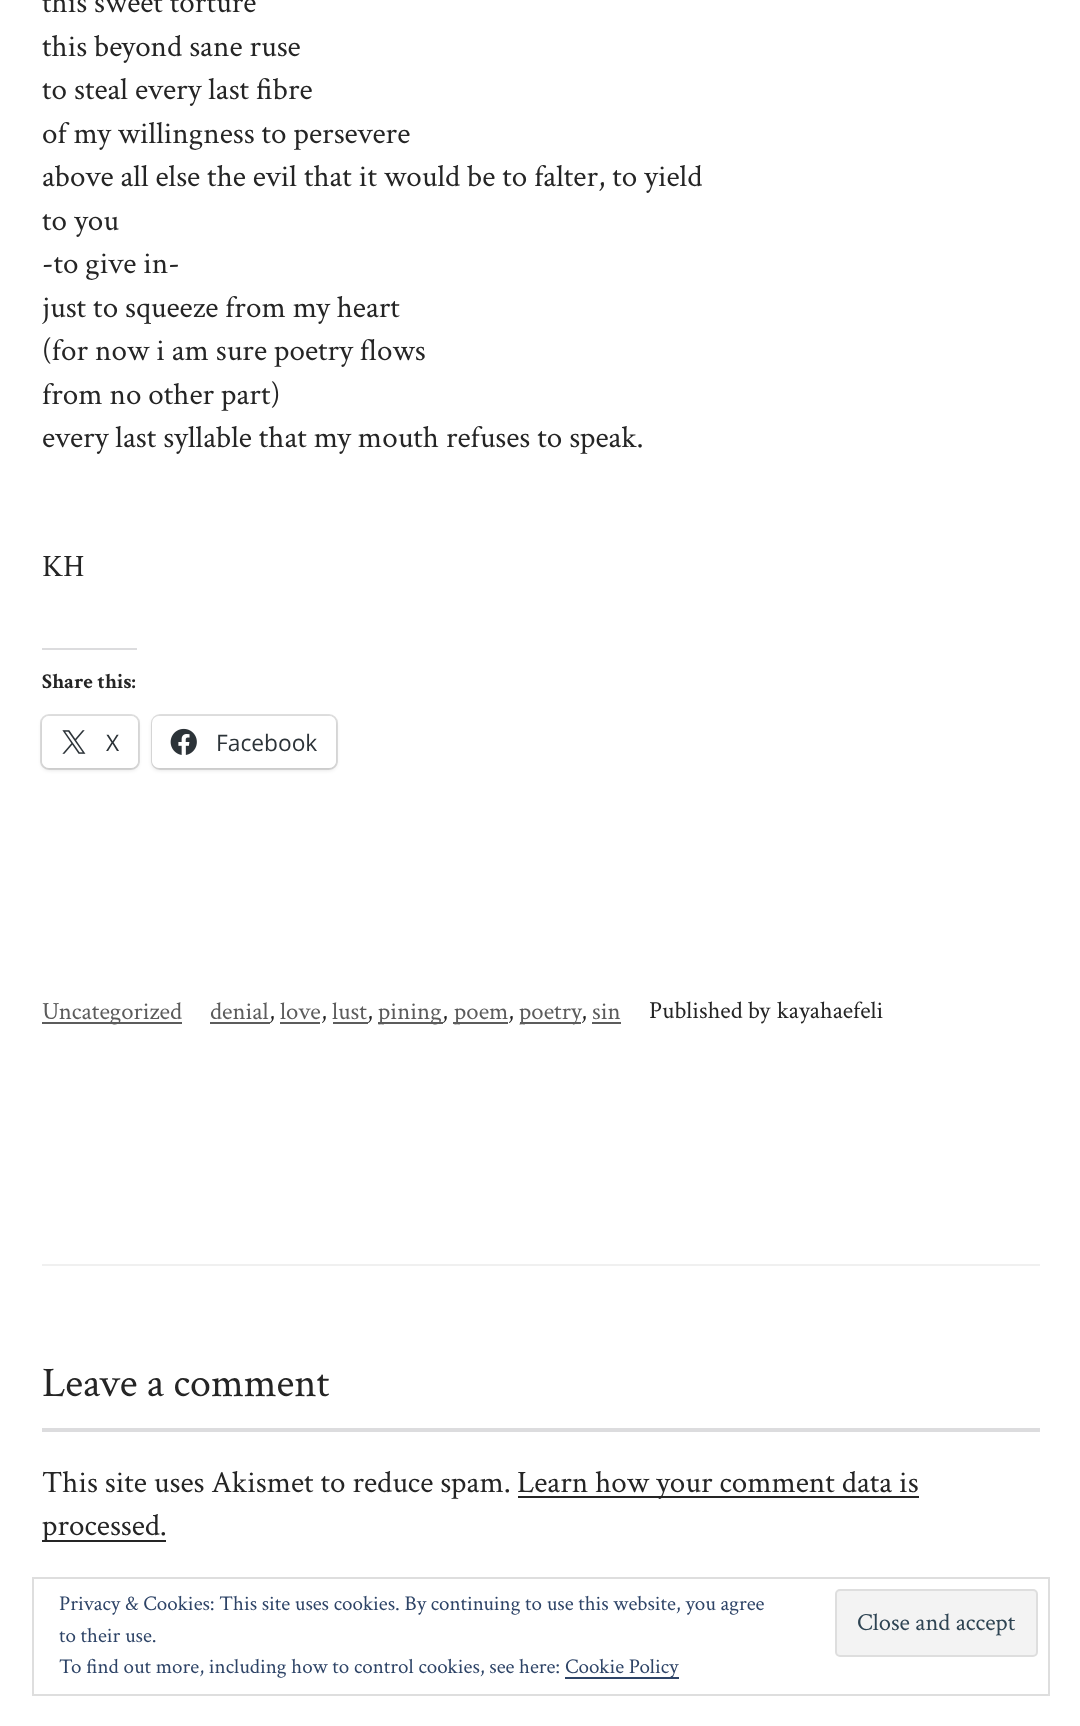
<svg xmlns="http://www.w3.org/2000/svg" width="1080" height="1726" viewBox="0 0 1080 1726">
  <defs>
    <filter id="blur1" x="-50%" y="-200%" width="200%" height="500%"><feGaussianBlur stdDeviation="2"/></filter>
  </defs>
  <rect width="100%" height="100%" fill="#ffffff"/>
  <text x="42" y="12" font-family="Crimson Text" font-size="31.1" fill="#252525">this sweet torture</text>
  <text x="42" y="56" font-family="Crimson Text" font-size="31.1" fill="#252525">this beyond sane ruse</text>
  <text x="42" y="99" font-family="Crimson Text" font-size="31.1" fill="#252525">to steal every last fibre</text>
  <text x="42" y="143" font-family="Crimson Text" font-size="31.1" fill="#252525">of my willingness to persevere</text>
  <text x="42" y="186" font-family="Crimson Text" font-size="31.1" fill="#252525">above all else the evil that it would be to falter, to yield</text>
  <text x="42" y="230" font-family="Crimson Text" font-size="31.1" fill="#252525">to you</text>
  <text x="42" y="273" font-family="Crimson Text" font-size="31.1" fill="#252525">-to give in-</text>
  <text x="42" y="317" font-family="Crimson Text" font-size="31.1" fill="#252525">just to squeeze from my heart</text>
  <text x="42" y="360" font-family="Crimson Text" font-size="31.1" fill="#252525">(for now i am sure poetry flows</text>
  <text x="42" y="404" font-family="Crimson Text" font-size="31.1" fill="#252525">from no other part)</text>
  <text x="42" y="447" font-family="Crimson Text" font-size="31.1" fill="#252525">every last syllable that my mouth refuses to speak.</text>
  <text x="42" y="576" font-family="Crimson Text" font-size="31.1" fill="#252525">KH</text>
  <rect x="42" y="648" width="95" height="2" fill="#dcdcde"/>
  <text x="42" y="688" font-family="Crimson Text" font-size="21" font-weight="bold" fill="#252525">Share this:</text>
  <rect x="41" y="715" width="98" height="54" rx="8" fill="none" stroke="#e0e0e0" stroke-width="2"/>
  <rect x="42" y="718" width="96" height="52" rx="7" fill="#000000" fill-opacity="0.12" filter="url(#blur1)"/>
  <rect x="42" y="716" width="96" height="52" rx="7" fill="#ffffff"/>
  <image x="62" y="730" width="24" height="24" href="img1.png"/>
  <text x="106" y="751" font-family="Open Sans" font-size="22.75" fill="#2c3338">X</text>
  <rect x="152" y="715" width="185" height="54" rx="8" fill="none" stroke="#e0e0e0" stroke-width="2"/>
  <rect x="152" y="718" width="184" height="52" rx="7" fill="#000000" fill-opacity="0.12" filter="url(#blur1)"/>
  <rect x="152" y="716" width="184" height="52" rx="7" fill="#ffffff"/>
  <image x="170" y="728" width="27" height="27" href="img2.png"/>
  <text x="216" y="751" font-family="Open Sans" font-size="22.75" fill="#2c3338">Facebook</text>
  <rect x="42" y="1022" width="140" height="2" fill="#5c5c5c"/>
  <text x="42" y="1019" font-family="Crimson Text" font-size="24.75" fill="#5c5c5c">Uncategorized</text>
  <text x="210" y="1019" font-family="Crimson Text" font-size="24.75" fill="#5c5c5c">denial</text>
  <rect x="210" y="1022" width="60" height="2" fill="#5c5c5c"/>
  <text x="269" y="1019" font-family="Crimson Text" font-size="24.75" fill="#252525">,</text>
  <text x="280" y="1019" font-family="Crimson Text" font-size="24.75" fill="#5c5c5c">love</text>
  <rect x="280" y="1022" width="40" height="2" fill="#5c5c5c"/>
  <text x="321" y="1019" font-family="Crimson Text" font-size="24.75" fill="#252525">,</text>
  <text x="332" y="1019" font-family="Crimson Text" font-size="24.75" fill="#5c5c5c">lust</text>
  <rect x="333" y="1022" width="35" height="2" fill="#5c5c5c"/>
  <text x="367" y="1019" font-family="Crimson Text" font-size="24.75" fill="#252525">,</text>
  <rect x="378" y="1022" width="65" height="2" fill="#5c5c5c"/>
  <text x="378" y="1019" font-family="Crimson Text" font-size="24.75" fill="#5c5c5c">pining</text>
  <text x="442" y="1019" font-family="Crimson Text" font-size="24.75" fill="#252525">,</text>
  <rect x="453" y="1022" width="55" height="2" fill="#5c5c5c"/>
  <text x="454" y="1019" font-family="Crimson Text" font-size="24.75" fill="#5c5c5c">poem</text>
  <text x="508" y="1019" font-family="Crimson Text" font-size="24.75" fill="#252525">,</text>
  <rect x="520" y="1022" width="61" height="2" fill="#5c5c5c"/>
  <text x="519" y="1019" font-family="Crimson Text" font-size="24.75" fill="#5c5c5c">poetry</text>
  <text x="581" y="1019" font-family="Crimson Text" font-size="24.75" fill="#252525">,</text>
  <text x="592" y="1019" font-family="Crimson Text" font-size="24.75" fill="#5c5c5c">sin</text>
  <rect x="592" y="1022" width="29" height="2" fill="#5c5c5c"/>
  <text x="649" y="1018" font-family="Crimson Text" font-size="24.5" fill="#252525">Published by</text>
  <text x="777" y="1018" font-family="Crimson Text" font-size="24.5" fill="#252525">kayahaefeli</text>
  <rect x="42" y="1264" width="998" height="2" fill="#f0f0f0"/>
  <text x="42" y="1396" font-family="Crimson Text" font-size="42" fill="#252525">Leave a comment</text>
  <rect x="42" y="1428" width="998" height="4" fill="#dcdcde"/>
  <text x="42" y="1492" font-family="Crimson Text" font-size="31.1" fill="#252525">This site uses Akismet to reduce spam.</text>
  <rect x="518" y="1496" width="401" height="2" fill="#252525"/>
  <text x="517" y="1492" font-family="Crimson Text" font-size="31.1" fill="#252525">Learn how your comment data is</text>
  <rect x="42" y="1540" width="124" height="2" fill="#252525"/>
  <text x="42" y="1535" font-family="Crimson Text" font-size="31.1" fill="#252525">processed.</text>
  <rect x="33" y="1578" width="1016" height="117" fill="none" stroke="#dedede" stroke-width="2"/>
  <text x="59" y="1610" font-family="Crimson Text" font-size="21" fill="#2e4467">Privacy &amp; Cookies: This site uses cookies. By continuing to use this website, you agree</text>
  <text x="59" y="1642" font-family="Crimson Text" font-size="21" fill="#2e4467">to their use.</text>
  <rect x="836" y="1590" width="201" height="66" rx="4" fill="#f3f3f3" stroke="#dedede" stroke-width="2"/>
  <text x="857" y="1630" font-family="Crimson Text" font-size="24.5" fill="#2e4453">Close and accept</text>
  <text x="59" y="1673" font-family="Crimson Text" font-size="21" fill="#2e4467">To find out more, including how to control cookies, see here:</text>
  <rect x="565" y="1677" width="114" height="2" fill="#2e4467"/>
  <text x="565" y="1673" font-family="Crimson Text" font-size="21" fill="#2e4467">Cookie Policy</text>
</svg>
